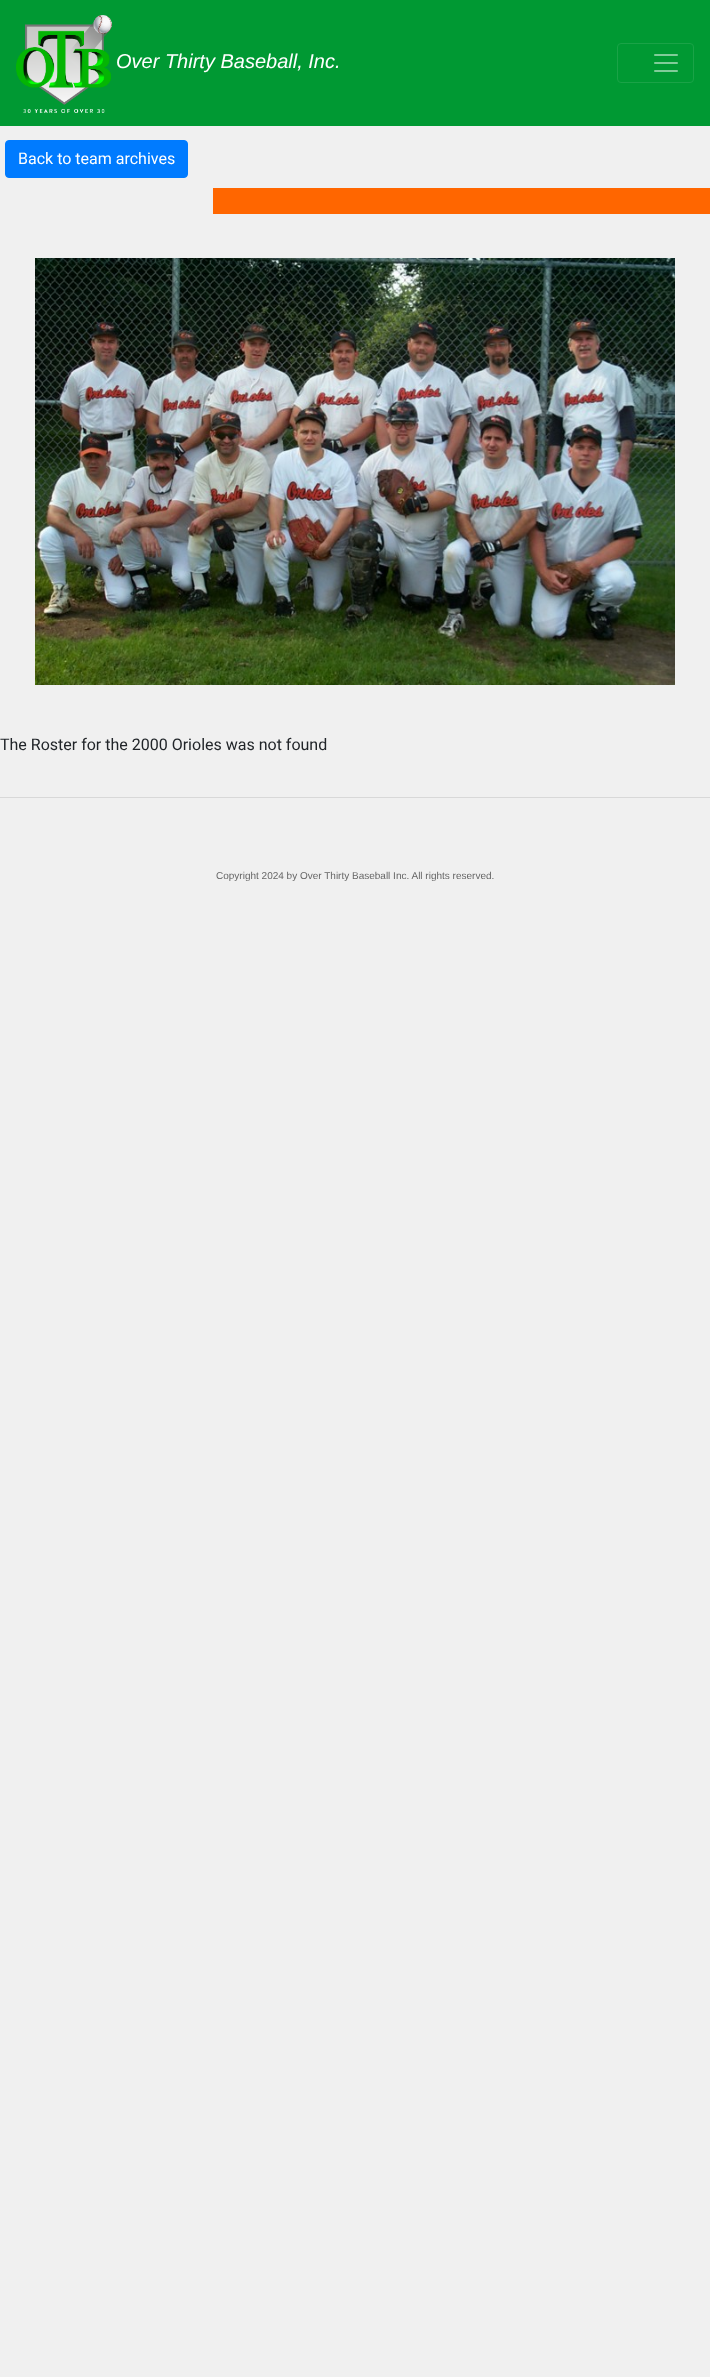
<svg xmlns="http://www.w3.org/2000/svg" width="710" height="2377" viewBox="0 0 710 2377">
  <rect width="100%" height="100%" fill="#f0f0f0"/>
  <rect x="0" y="0" width="710" height="126" fill="#009933"/>
  <image x="16" y="15" width="96" height="98" href="img1.png"/>
  <text x="116" y="68" font-family="Liberation Sans" font-size="20" font-style="italic" fill="#ffffff">Over Thirty Baseball, Inc.</text>
  <rect x="617.5" y="43.5" width="76" height="39" rx="3.5" fill="none" stroke="#1aa347"/>
  <image x="654" y="54" width="24" height="18" href="img2.png"/>
  <rect x="5.5" y="140.5" width="182" height="37" rx="3.5" fill="#007bff" stroke="#007bff"/>
  <text x="18" y="164" font-family="Roboto" font-size="16" fill="#ffffff">Back to team archives</text>
  <rect x="213" y="188" width="497" height="26" fill="#ff6600"/>
  <image x="35" y="258" width="640" height="427" href="img3.png"/>
  <text x="0" y="750" font-family="Roboto" font-size="16" fill="#212529">The Roster for the 2000 Orioles was not found</text>
  <rect x="0" y="797" width="710" height="1" fill="#d8d8d8"/>
  <text x="216" y="879" font-family="Liberation Sans" font-size="10" fill="#666666">Copyright 2024 by Over Thirty Baseball Inc. All rights reserved.</text>
</svg>
